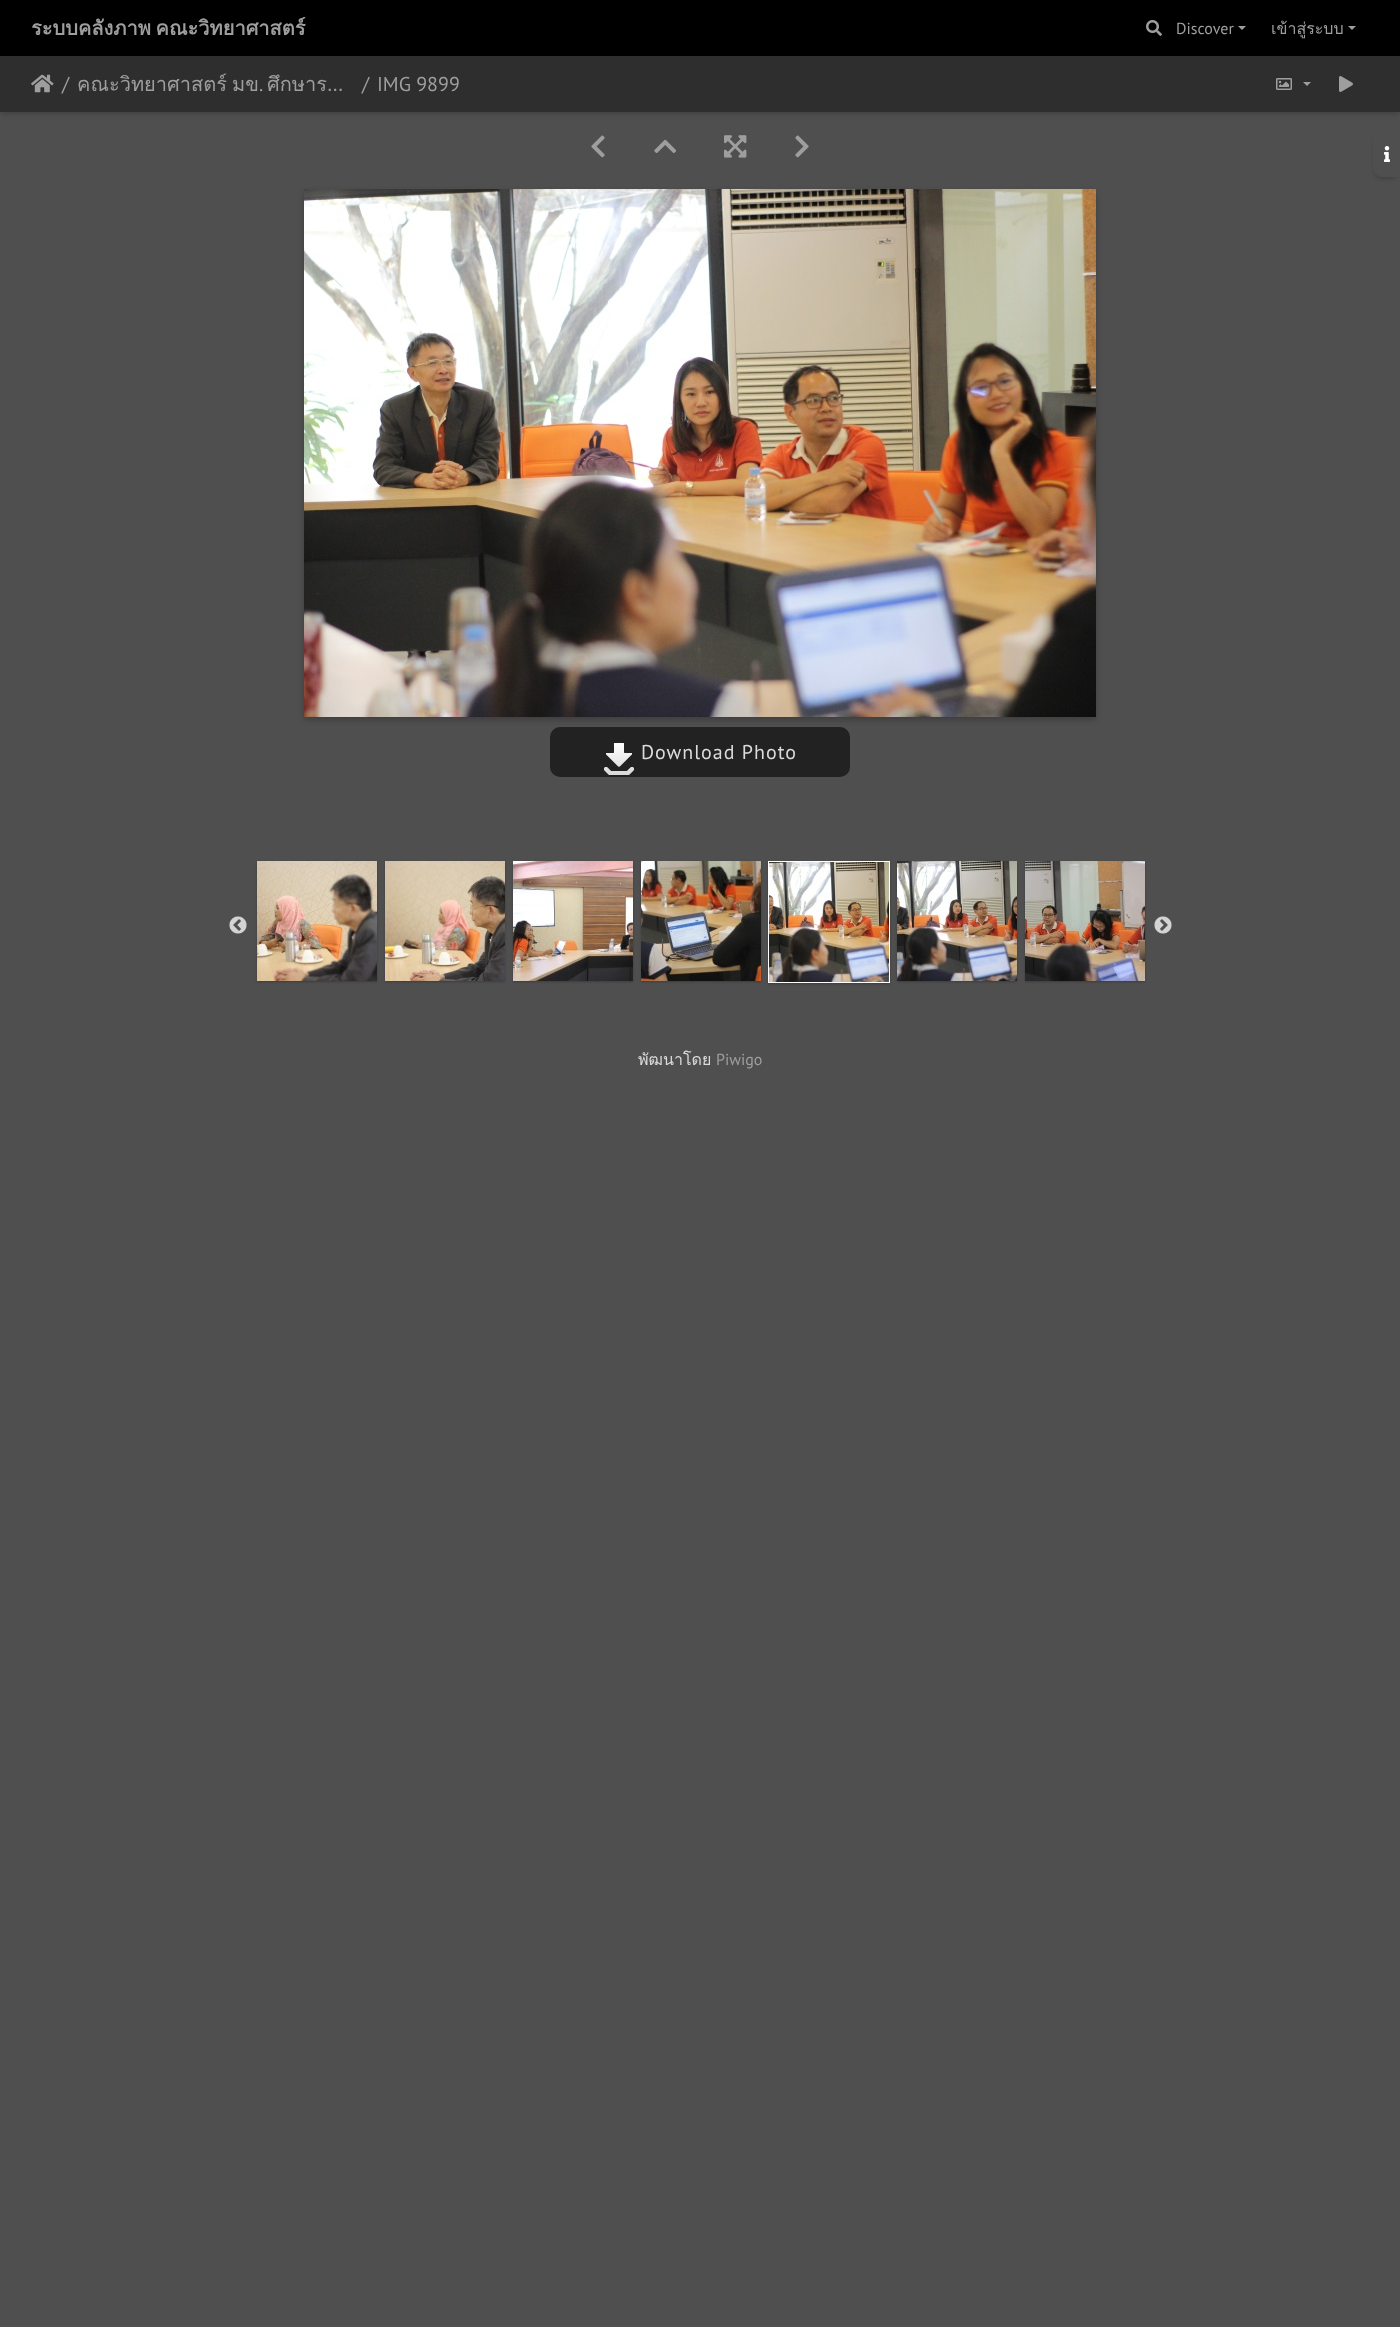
<svg xmlns="http://www.w3.org/2000/svg" width="1400" height="2327" viewBox="0 0 1400 2327">
  <defs>
    <filter id="blur1" x="-50%" y="-200%" width="200%" height="500%"><feGaussianBlur stdDeviation="2.5"/></filter>
    <filter id="blur2" x="-50%" y="-200%" width="200%" height="500%"><feGaussianBlur stdDeviation="3"/></filter>
    <filter id="blur3" x="-50%" y="-200%" width="200%" height="500%"><feGaussianBlur stdDeviation="1"/></filter>
  </defs>
  <rect width="100%" height="100%" fill="#4f4f4f"/>
  <rect x="1" y="60" width="1398" height="54" fill="#000000" fill-opacity="0.2" filter="url(#blur1)"/>
  <rect x="0" y="0" width="1400" height="56" fill="#000000"/>
  <text x="31" y="35" word-spacing="-2" font-family="Loma" font-size="20" font-weight="bold" fill="#9e9e9e">ระบบคลังภาพ คณะวิทยาศาสตร์</text>
  <image x="1146" y="20" width="16" height="16" href="img1.png"/>
  <text x="1176" y="34" font-family="PT Sans" font-size="16" fill="#9e9e9e">Discover</text>
  <path d="M1238 26H1246L1242 30Z" fill="#9e9e9e"/>
  <text x="1271" y="34" font-family="Loma" font-size="16" fill="#9e9e9e">เข้าสู่ระบบ</text>
  <path d="M1348 26H1356L1352 30Z" fill="#9e9e9e"/>
  <rect x="0" y="56" width="1400" height="56" fill="#2e2e2e"/>
  <image x="31" y="74" width="23" height="19" href="img2.png"/>
  <text x="62" y="91" font-family="PT Sans" font-size="20" fill="#9e9e9e">/</text>
  <text x="77" y="91" font-family="Loma" font-size="20" fill="#9e9e9e">คณะวิทยาศาสตร์</text>
  <text x="232" y="91" font-family="Loma" font-size="20" fill="#9e9e9e">มข</text>
  <text x="259" y="91" font-family="PT Sans" font-size="20" fill="#9e9e9e">.</text>
  <text x="267" y="91" font-family="Loma" font-size="20" fill="#9e9e9e">ศึกษาร…</text>
  <text x="362" y="91" font-family="PT Sans" font-size="20" fill="#9e9e9e">/</text>
  <text x="377" y="91" font-family="PT Sans" font-size="20" fill="#9e9e9e">IMG 9899</text>
  <image x="1276" y="78" width="16" height="12" href="img3.png"/>
  <path d="M1303 82H1311L1307 86Z" fill="#9e9e9e"/>
  <image x="1339" y="76" width="14" height="16" href="img4.png"/>
  <image x="591" y="135" width="14" height="23" href="img5.png"/>
  <image x="654" y="139" width="22" height="14" href="img6.png"/>
  <image x="724" y="135" width="23" height="23" href="img7.png"/>
  <image x="795" y="135" width="14" height="23" href="img8.png"/>
  <rect x="1374" y="135" width="25" height="44" rx="9" fill="#000000" fill-opacity="0.2" filter="url(#blur1)"/>
  <path d="M1383 131H1400V177H1383C1377.5 177 1373 172.5 1373 167V141C1373 135.5 1377.5 131 1383 131Z" fill="#4f4f4f"/>
  <path d="M1383 131H1400V177H1383C1377 177 1373 173 1373 167V141C1373 135 1377 131 1383 131ZM1383 132H1400V176H1383C1378 176 1374 172 1374 167V141C1374 136 1378 132 1383 132Z" fill="#4f4f4f" fill-rule="evenodd"/>
  <image x="1384" y="146" width="6" height="16" href="img9.png"/>
  <rect x="550" y="727" width="300" height="50" rx="10" fill="#222222"/>
  <rect x="304" y="192" width="792" height="528" fill="#000000" fill-opacity="0.23" filter="url(#blur2)"/>
  <image x="304" y="189" width="792" height="528" href="img10.png"/>
  <image x="604" y="743" width="30" height="32" href="img11.png"/>
  <text x="641" y="759" font-family="PT Sans" font-size="20" letter-spacing="1" fill="#dbdbdb">Download Photo</text>
  <image x="229" y="916" width="18" height="18" href="img12.png"/>
  <rect x="257" y="862" width="120" height="120" fill="#000000" fill-opacity="0.24" filter="url(#blur3)"/>
  <image x="257" y="861" width="120" height="120" href="img13.png"/>
  <rect x="385" y="862" width="120" height="120" fill="#000000" fill-opacity="0.24" filter="url(#blur3)"/>
  <image x="385" y="861" width="120" height="120" href="img14.png"/>
  <rect x="513" y="862" width="120" height="120" fill="#000000" fill-opacity="0.24" filter="url(#blur3)"/>
  <image x="513" y="861" width="120" height="120" href="img15.png"/>
  <rect x="641" y="862" width="120" height="120" fill="#000000" fill-opacity="0.24" filter="url(#blur3)"/>
  <image x="641" y="861" width="120" height="120" href="img16.png"/>
  <rect x="768" y="862" width="122" height="122" fill="#000000" fill-opacity="0.24" filter="url(#blur3)"/>
  <rect x="768.5" y="861.5" width="121" height="121" fill="none" stroke="#ffffff"/>
  <image x="769" y="862" width="120" height="120" href="img17.png"/>
  <rect x="897" y="862" width="120" height="120" fill="#000000" fill-opacity="0.24" filter="url(#blur3)"/>
  <image x="897" y="861" width="120" height="120" href="img18.png"/>
  <rect x="1025" y="862" width="120" height="120" fill="#000000" fill-opacity="0.24" filter="url(#blur3)"/>
  <image x="1025" y="861" width="120" height="120" href="img19.png"/>
  <image x="1154" y="916" width="18" height="18" href="img20.png"/>
  <text x="638" y="1065" font-family="Loma" font-size="16" fill="#dbdbdb">พัฒนาโดย</text>
  <text x="716" y="1065" font-family="PT Sans" font-size="16" fill="#9e9e9e">Piwigo</text>
</svg>
